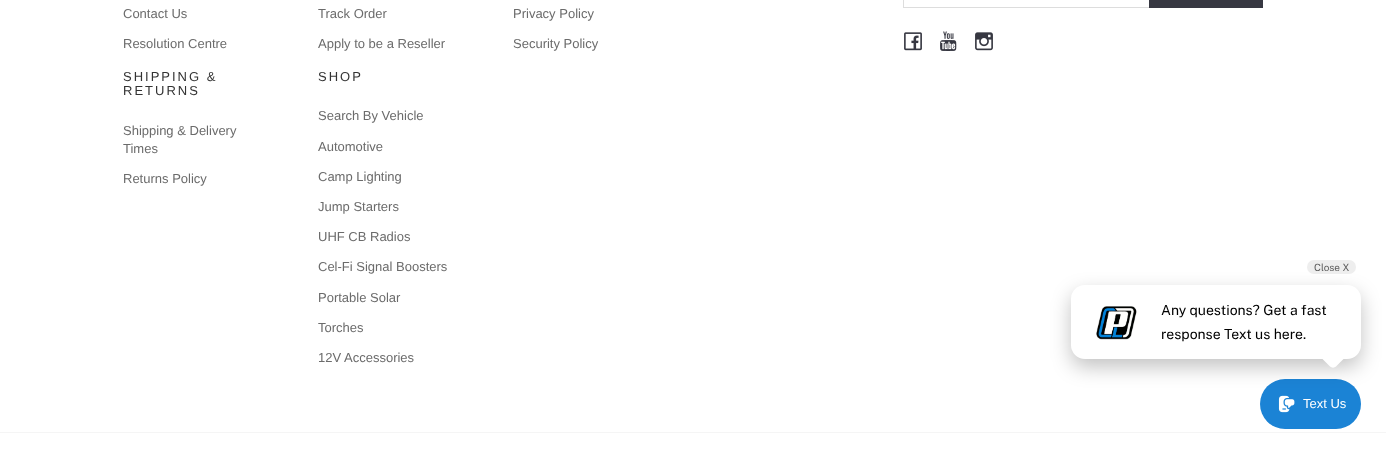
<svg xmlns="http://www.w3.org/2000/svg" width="1386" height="454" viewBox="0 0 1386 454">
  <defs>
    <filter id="blur1" x="-50%" y="-200%" width="200%" height="500%"><feGaussianBlur stdDeviation="10"/></filter>
  </defs>
  <rect width="100%" height="100%" fill="#ffffff"/>
  <text x="123" y="18" font-family="Liberation Sans" font-size="13" fill="#6b6b6b">Contact Us</text>
  <text x="123" y="48" font-family="Liberation Sans" font-size="13" fill="#6b6b6b">Resolution Centre</text>
  <text x="318" y="18" font-family="Liberation Sans" font-size="13" fill="#6b6b6b">Track Order</text>
  <text x="318" y="48" font-family="Liberation Sans" font-size="13" fill="#6b6b6b">Apply to be a Reseller</text>
  <text x="513" y="18" font-family="Liberation Sans" font-size="13" fill="#6b6b6b">Privacy Policy</text>
  <text x="513" y="48" font-family="Liberation Sans" font-size="13" fill="#6b6b6b">Security Policy</text>
  <text x="123" y="81" font-family="Liberation Sans" font-size="13" letter-spacing="2" fill="#333333">SHIPPING &amp;</text>
  <text x="123" y="95" font-family="Liberation Sans" font-size="13" letter-spacing="2" fill="#333333">RETURNS</text>
  <text x="123" y="135" font-family="Liberation Sans" font-size="13" fill="#6b6b6b">Shipping &amp; Delivery</text>
  <text x="123" y="153" font-family="Liberation Sans" font-size="13" fill="#6b6b6b">Times</text>
  <text x="123" y="183" font-family="Liberation Sans" font-size="13" fill="#6b6b6b">Returns Policy</text>
  <text x="318" y="81" font-family="Liberation Sans" font-size="13" letter-spacing="2" fill="#333333">SHOP</text>
  <text x="318" y="120" font-family="Liberation Sans" font-size="13" fill="#6b6b6b">Search By Vehicle</text>
  <text x="318" y="151" font-family="Liberation Sans" font-size="13" fill="#6b6b6b">Automotive</text>
  <text x="318" y="181" font-family="Liberation Sans" font-size="13" fill="#6b6b6b">Camp Lighting</text>
  <text x="318" y="211" font-family="Liberation Sans" font-size="13" fill="#6b6b6b">Jump Starters</text>
  <text x="318" y="241" font-family="Liberation Sans" font-size="13" fill="#6b6b6b">UHF CB Radios</text>
  <text x="318" y="271" font-family="Liberation Sans" font-size="13" fill="#6b6b6b">Cel-Fi Signal Boosters</text>
  <text x="318" y="302" font-family="Liberation Sans" font-size="13" fill="#6b6b6b">Portable Solar</text>
  <text x="318" y="332" font-family="Liberation Sans" font-size="13" fill="#6b6b6b">Torches</text>
  <text x="318" y="362" font-family="Liberation Sans" font-size="13" fill="#6b6b6b">12V Accessories</text>
  <rect x="903.5" y="-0.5" width="246" height="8" fill="none" stroke="#dddddd"/>
  <rect x="1149" y="0" width="114" height="8" fill="#373842"/>
  <image x="904" y="32" width="18" height="19" href="img1.png"/>
  <image x="940" y="31" width="17" height="20" href="img2.png"/>
  <image x="975" y="32" width="18" height="19" href="img3.png"/>
  <rect x="1260" y="379" width="101" height="50" rx="25" fill="#1b83d5"/>
  <image x="1278" y="395" width="17" height="18" href="img5.png"/>
  <rect x="1071" y="293" width="290" height="74" rx="14" fill="#000000" fill-opacity="0.24" filter="url(#blur1)"/>
  <rect x="1071" y="285" width="290" height="74" rx="14" fill="#ffffff"/>
  <rect x="1307" y="260" width="49" height="14" rx="7" fill="#eeeeee"/>
  <text x="1314" y="271" font-family="Public Sans" font-size="10" font-weight="100" fill="#5d5d5d">Close X</text>
  <image x="1096" y="306" width="41" height="34" href="img4.png"/>
  <text x="1161" y="315" font-family="Public Sans" font-size="14" font-weight="100" fill="#000000">Any questions? Get a fast</text>
  <text x="1161" y="339" font-family="Public Sans" font-size="14" font-weight="100" fill="#000000">response Text us here.</text>
  <path d="M1336 343.5L1344.5 352C1346 353.5 1346 356.5 1344.5 358L1336 366.5C1334.5 368 1331.5 368 1330 366.5L1321.5 358C1320 356.5 1320 353.5 1321.5 352L1330 343.5C1331.5 342 1334.5 342 1336 343.5Z" fill="#ffffff"/>
  <text x="1303" y="408" font-family="Liberation Sans" font-size="13" fill="#ffffff">Text Us</text>
  <rect x="0" y="432" width="1386" height="1" fill="#f5f5f5"/>
</svg>
